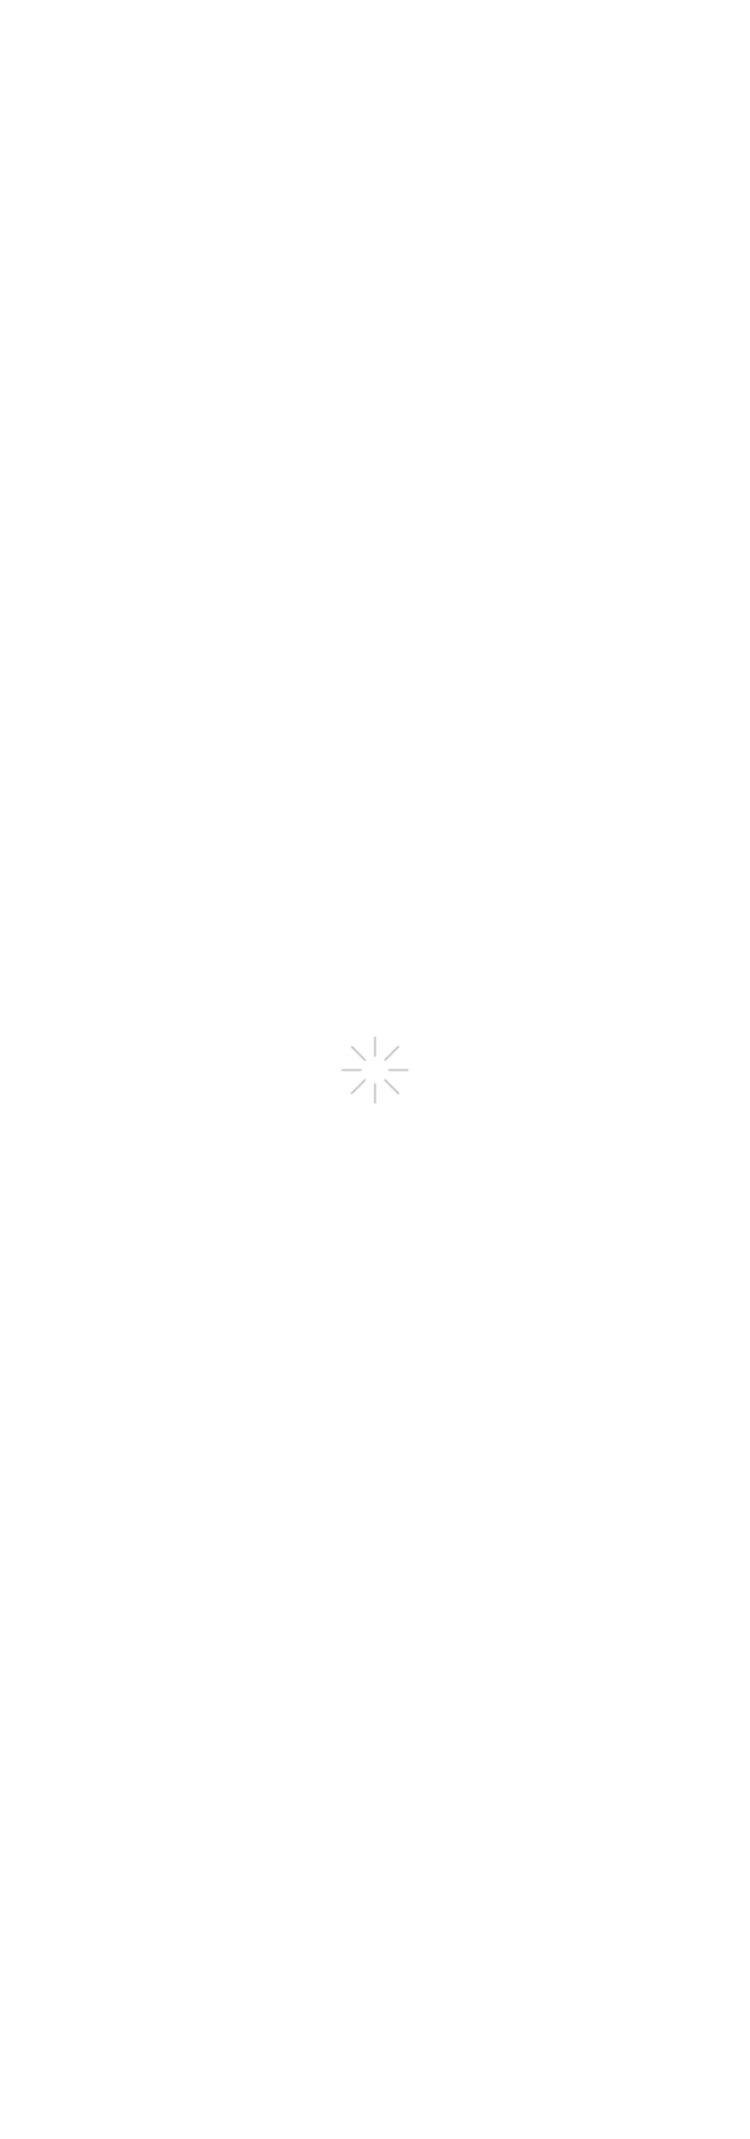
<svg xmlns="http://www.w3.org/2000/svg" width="750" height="2139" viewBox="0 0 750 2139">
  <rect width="100%" height="100%" fill="#ffffff"/>
  <image x="341" y="1036" width="68" height="68" href="img1.png"/>
</svg>
